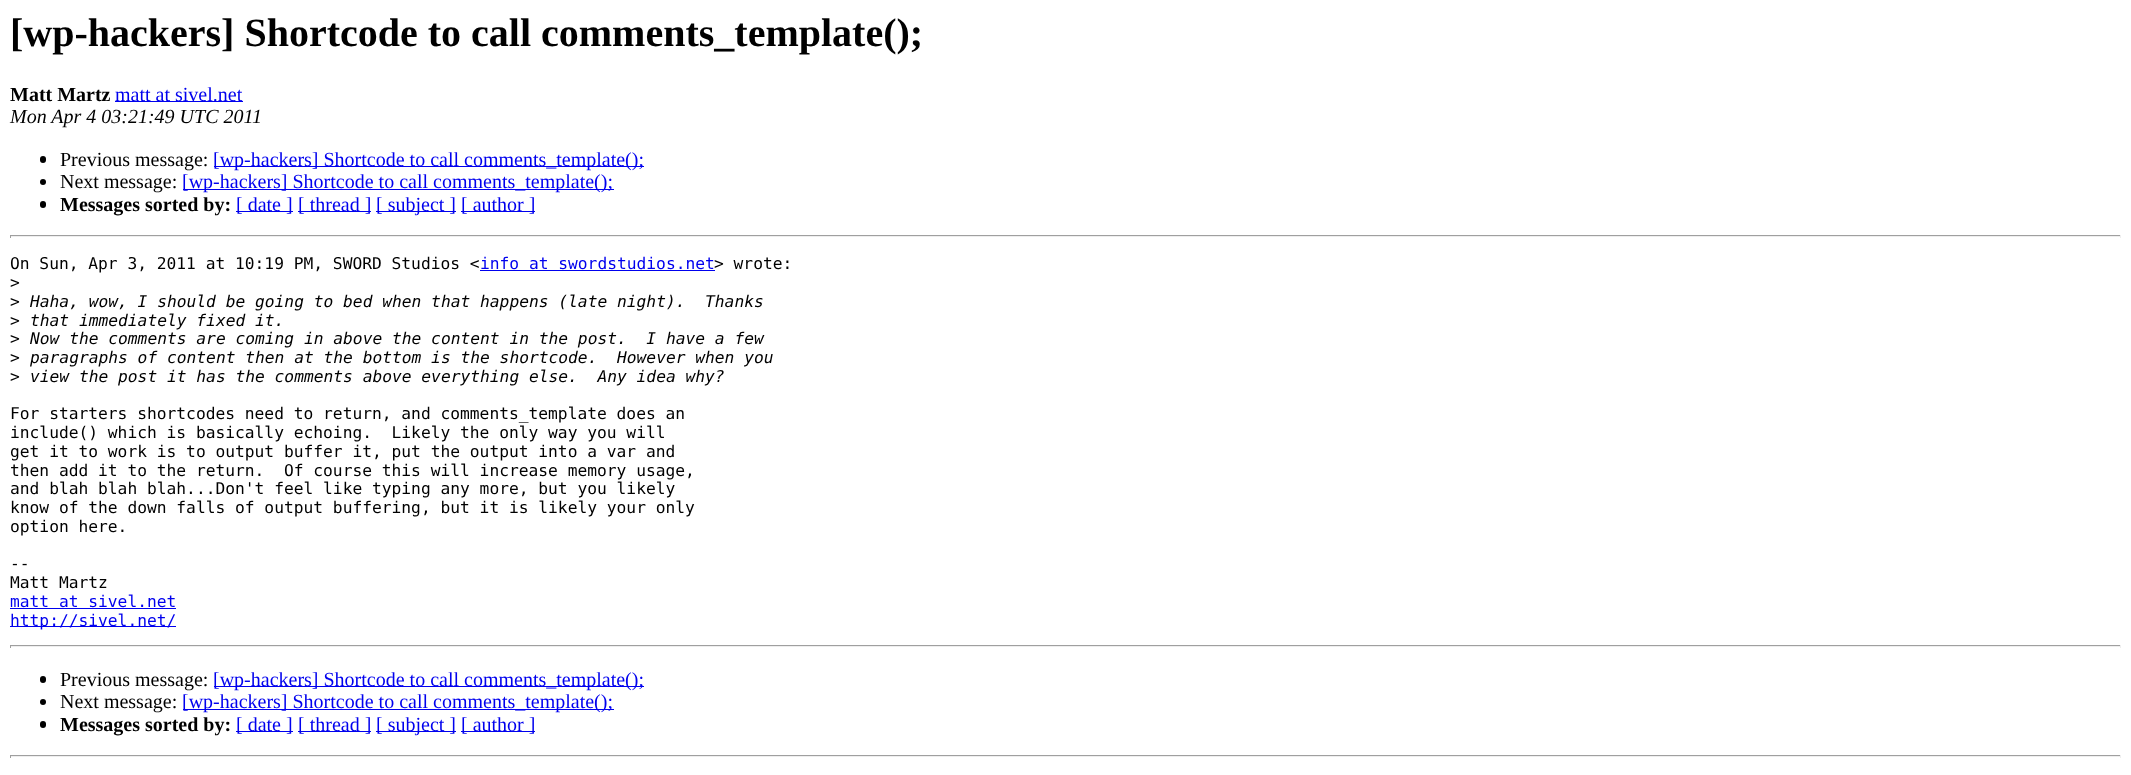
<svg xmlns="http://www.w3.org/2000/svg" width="2131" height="775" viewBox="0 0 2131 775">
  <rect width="100%" height="100%" fill="#ffffff"/>
  <text x="10" y="46" font-family="Liberation Serif" font-size="40" font-weight="bold" fill="#000000">[wp-hackers] Shortcode to call comments_template();</text>
  <text x="10" y="101" font-family="Liberation Serif" font-size="20" font-weight="bold" fill="#000000">Matt Martz</text>
  <rect x="115" y="101" width="128" height="1" fill="#0000ee"/>
  <text x="115" y="101" font-family="Liberation Serif" font-size="20" fill="#0000ee">matt at sivel.net</text>
  <text x="10" y="123" font-family="Liberation Serif" font-size="20" font-style="italic" fill="#000000">Mon Apr 4 03:21:49 UTC 2011</text>
  <rect x="40" y="156" width="6" height="7" rx="3" fill="#000000"/>
  <text x="60" y="166" font-family="Liberation Serif" font-size="20" fill="#000000">Previous message:</text>
  <rect x="214" y="166" width="430" height="1" fill="#0000ee"/>
  <text x="213" y="166" font-family="Liberation Serif" font-size="20" fill="#0000ee">[wp-hackers] Shortcode to call comments_template();</text>
  <circle cx="43" cy="182" r="3" fill="#000000"/>
  <text x="60" y="188" font-family="Liberation Serif" font-size="20" fill="#000000">Next message:</text>
  <rect x="183" y="189" width="431" height="1" fill="#0000ee"/>
  <text x="182" y="188" font-family="Liberation Serif" font-size="20" fill="#0000ee">[wp-hackers] Shortcode to call comments_template();</text>
  <rect x="40" y="201" width="6" height="7" rx="3" fill="#000000"/>
  <text x="60" y="211" font-family="Liberation Serif" font-size="20" font-weight="bold" fill="#000000">Messages sorted by:</text>
  <rect x="236" y="211" width="57" height="1" fill="#0000ee"/>
  <text x="236" y="211" font-family="Liberation Serif" font-size="20" fill="#0000ee">[ date ]</text>
  <rect x="298" y="211" width="73" height="1" fill="#0000ee"/>
  <text x="298" y="211" font-family="Liberation Serif" font-size="20" fill="#0000ee">[ thread ]</text>
  <rect x="376" y="211" width="80" height="1" fill="#0000ee"/>
  <text x="376" y="211" font-family="Liberation Serif" font-size="20" fill="#0000ee">[ subject ]</text>
  <rect x="461" y="211" width="74" height="1" fill="#0000ee"/>
  <text x="461" y="211" font-family="Liberation Serif" font-size="20" fill="#0000ee">[ author ]</text>
  <rect x="10" y="235" width="2111" height="1" fill="#9f9f9f"/>
  <rect x="2120" y="235" width="1" height="3" fill="#eeeeee"/>
  <rect x="10" y="236" width="2111" height="1" fill="#eeeeee"/>
  <rect x="10" y="235" width="1" height="3" fill="#9f9f9f"/>
  <text x="10" y="269" font-family="DejaVu Sans Mono" font-size="16.25" fill="#000000">On Sun, Apr 3, 2011 at 10:19 PM, SWORD Studios &lt;</text>
  <text x="480" y="269" font-family="DejaVu Sans Mono" font-size="16.25" fill="#0000ee">info at swordstudios.net</text>
  <rect x="480" y="270" width="235" height="1" fill="#0000ee"/>
  <text x="714" y="269" font-family="DejaVu Sans Mono" font-size="16.25" fill="#000000">&gt; wrote:</text>
  <text x="10" y="288" font-family="DejaVu Sans Mono" font-size="16.25" fill="#000000">&gt;</text>
  <text x="10" y="307" font-family="DejaVu Sans Mono" font-size="16.25" fill="#000000">&gt;</text>
  <text x="30" y="307" font-family="DejaVu Sans Mono" font-size="16.25" font-style="italic" fill="#000000" xml:space="preserve">Haha, wow, I should be going to bed when that happens (late night).  Thanks</text>
  <text x="10" y="326" font-family="DejaVu Sans Mono" font-size="16.25" fill="#000000">&gt;</text>
  <text x="30" y="326" font-family="DejaVu Sans Mono" font-size="16.25" font-style="italic" fill="#000000">that immediately fixed it.</text>
  <text x="10" y="344" font-family="DejaVu Sans Mono" font-size="16.25" fill="#000000">&gt;</text>
  <text x="30" y="344" font-family="DejaVu Sans Mono" font-size="16.25" font-style="italic" fill="#000000" xml:space="preserve">Now the comments are coming in above the content in the post.  I have a few</text>
  <text x="10" y="363" font-family="DejaVu Sans Mono" font-size="16.25" fill="#000000">&gt;</text>
  <text x="30" y="363" font-family="DejaVu Sans Mono" font-size="16.25" font-style="italic" fill="#000000" xml:space="preserve">paragraphs of content then at the bottom is the shortcode.  However when you</text>
  <text x="10" y="382" font-family="DejaVu Sans Mono" font-size="16.25" fill="#000000">&gt;</text>
  <text x="30" y="382" font-family="DejaVu Sans Mono" font-size="16.25" font-style="italic" fill="#000000" xml:space="preserve">view the post it has the comments above everything else.  Any idea why?</text>
  <text x="10" y="419" font-family="DejaVu Sans Mono" font-size="16.25" fill="#000000">For starters shortcodes need to return, and comments_template does an</text>
  <text x="10" y="438" font-family="DejaVu Sans Mono" font-size="16.25" fill="#000000" xml:space="preserve">include() which is basically echoing.  Likely the only way you will</text>
  <text x="10" y="457" font-family="DejaVu Sans Mono" font-size="16.25" fill="#000000">get it to work is to output buffer it, put the output into a var and</text>
  <text x="10" y="476" font-family="DejaVu Sans Mono" font-size="16.25" fill="#000000" xml:space="preserve">then add it to the return.  Of course this will increase memory usage,</text>
  <text x="10" y="494" font-family="DejaVu Sans Mono" font-size="16.25" fill="#000000">and blah blah blah...Don't feel like typing any more, but you likely</text>
  <text x="10" y="513" font-family="DejaVu Sans Mono" font-size="16.25" fill="#000000">know of the down falls of output buffering, but it is likely your only</text>
  <text x="10" y="532" font-family="DejaVu Sans Mono" font-size="16.25" fill="#000000">option here.</text>
  <text x="10" y="569" font-family="DejaVu Sans Mono" font-size="16.25" fill="#000000">--</text>
  <text x="10" y="588" font-family="DejaVu Sans Mono" font-size="16.25" fill="#000000">Matt Martz</text>
  <text x="10" y="607" font-family="DejaVu Sans Mono" font-size="16.25" fill="#0000ee">matt at sivel.net</text>
  <rect x="10" y="608" width="166" height="1" fill="#0000ee"/>
  <rect x="10" y="626" width="166" height="1" fill="#0000ee"/>
  <text x="10" y="626" font-family="DejaVu Sans Mono" font-size="16.25" fill="#0000ee">http://sivel.net/</text>
  <rect x="10" y="645" width="2111" height="1" fill="#9f9f9f"/>
  <rect x="2120" y="645" width="1" height="3" fill="#eeeeee"/>
  <rect x="10" y="646" width="2111" height="1" fill="#eeeeee"/>
  <rect x="10" y="645" width="1" height="3" fill="#9f9f9f"/>
  <rect x="40" y="676" width="6" height="7" rx="3" fill="#000000"/>
  <text x="60" y="686" font-family="Liberation Serif" font-size="20" fill="#000000">Previous message:</text>
  <rect x="214" y="686" width="430" height="1" fill="#0000ee"/>
  <text x="213" y="686" font-family="Liberation Serif" font-size="20" fill="#0000ee">[wp-hackers] Shortcode to call comments_template();</text>
  <circle cx="43" cy="702" r="3" fill="#000000"/>
  <text x="60" y="708" font-family="Liberation Serif" font-size="20" fill="#000000">Next message:</text>
  <rect x="183" y="709" width="431" height="1" fill="#0000ee"/>
  <text x="182" y="708" font-family="Liberation Serif" font-size="20" fill="#0000ee">[wp-hackers] Shortcode to call comments_template();</text>
  <rect x="40" y="721" width="6" height="7" rx="3" fill="#000000"/>
  <text x="60" y="731" font-family="Liberation Serif" font-size="20" font-weight="bold" fill="#000000">Messages sorted by:</text>
  <rect x="236" y="731" width="57" height="1" fill="#0000ee"/>
  <text x="236" y="731" font-family="Liberation Serif" font-size="20" fill="#0000ee">[ date ]</text>
  <rect x="298" y="731" width="73" height="1" fill="#0000ee"/>
  <text x="298" y="731" font-family="Liberation Serif" font-size="20" fill="#0000ee">[ thread ]</text>
  <rect x="376" y="731" width="80" height="1" fill="#0000ee"/>
  <text x="376" y="731" font-family="Liberation Serif" font-size="20" fill="#0000ee">[ subject ]</text>
  <rect x="461" y="731" width="74" height="1" fill="#0000ee"/>
  <text x="461" y="731" font-family="Liberation Serif" font-size="20" fill="#0000ee">[ author ]</text>
  <rect x="10" y="755" width="2111" height="1" fill="#9f9f9f"/>
  <rect x="2120" y="755" width="1" height="3" fill="#eeeeee"/>
  <rect x="10" y="756" width="2111" height="1" fill="#eeeeee"/>
  <rect x="10" y="755" width="1" height="3" fill="#9f9f9f"/>
</svg>
